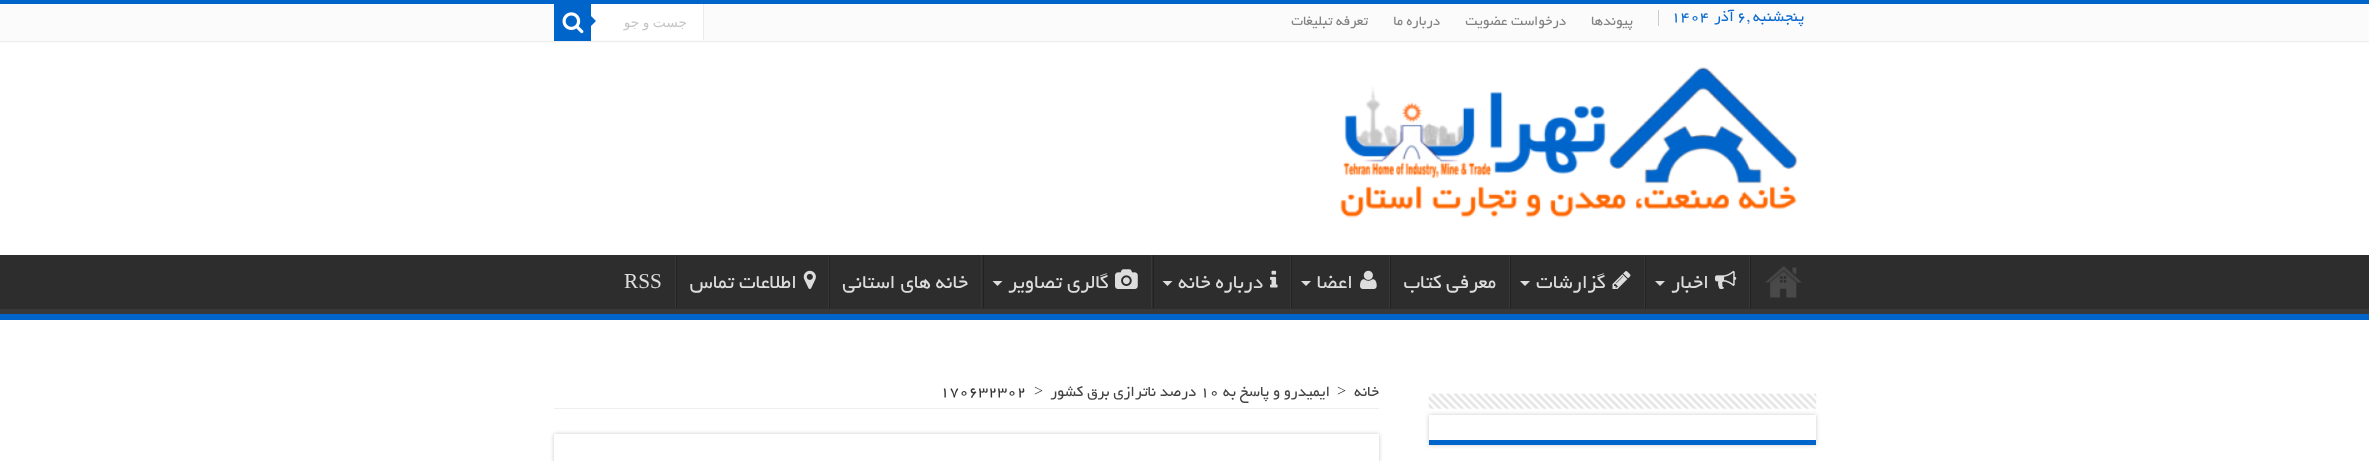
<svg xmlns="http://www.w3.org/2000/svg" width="2369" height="461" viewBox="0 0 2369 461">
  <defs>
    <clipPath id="clip1"><rect x="0" y="255" width="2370" height="59"/></clipPath>
    <clipPath id="clip2"><path d="M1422 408H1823V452H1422ZM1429 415H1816V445H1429Z" clip-rule="evenodd"/></clipPath>
    <filter id="blur1" x="-50%" y="-200%" width="200%" height="500%"><feGaussianBlur stdDeviation="2"/></filter>
  </defs>
  <rect width="100%" height="100%" fill="#ffffff"/>
  <rect x="0" y="0" width="2369" height="4" fill="#0065cb"/>
  <rect x="0" y="4" width="2369" height="39" fill="#fbfbfb"/>
  <rect x="0" y="41" width="2369" height="1" fill="#ececec"/>
  <rect x="1658" y="10" width="1" height="16" fill="#cccccc"/>
  <text x="1804" y="21" font-family="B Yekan" font-size="16.25" direction="rtl" fill="#0c6bd1">پنجشنبه ,</text>
  <text x="1737" y="21" font-family="B Yekan" font-size="16.25" fill="#0c6bd1">۶</text>
  <text x="1734" y="21" font-family="B Yekan" font-size="16.25" direction="rtl" fill="#0c6bd1">آذر</text>
  <text x="1671" y="21" font-family="B Yekan" font-size="16.25" fill="#0c6bd1">۱۴۰۴</text>
  <text x="1633" y="25" font-family="B Yekan" font-size="15" direction="rtl" fill="#838383">پیوندها</text>
  <text x="1566" y="25" font-family="B Yekan" font-size="15" direction="rtl" fill="#838383">درخواست عضویت</text>
  <text x="1440" y="25" font-family="B Yekan" font-size="15" direction="rtl" fill="#838383">درباره ما</text>
  <text x="1368" y="25" font-family="B Yekan" font-size="15" direction="rtl" fill="#838383">تعرفه تبلیغات</text>
  <rect x="591" y="4" width="112" height="36" fill="#ffffff"/>
  <rect x="703" y="4" width="1" height="36" fill="#ececec"/>
  <text x="687" y="27" word-spacing="-1" font-family="DejaVu Sans" font-size="13.75" direction="rtl" fill="#c5c5c5">جست و جو</text>
  <rect x="554" y="4" width="37" height="37" fill="#0065cb"/>
  <image x="562" y="12" width="22" height="22" href="img1.png"/>
  <path d="M591 26V16L596 21Z" fill="#0065cb"/>
  <image x="1340" y="67" width="458" height="151" href="img2.png"/>
  <rect x="0" y="255" width="2369" height="54" fill="#2d2d2d"/>
  <g clip-path="url(#clip1)">
    <path d="M-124 131H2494V438H-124ZM-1 248H2369C2369 248 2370 248 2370 249V308C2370 308 2369 309 2369 309H-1C-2 309-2 308-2 308V249C-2 248-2 248-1 248Z" fill="#393939" fill-rule="evenodd"/>
  </g>
  <rect x="0" y="314" width="2369" height="6" fill="#0065cb"/>
  <image x="1765" y="266" width="37" height="32" href="img3.png"/>
  <rect x="1750" y="255" width="1" height="53" fill="#222222"/>
  <rect x="1749" y="255" width="1" height="53" fill="#383838"/>
  <image x="1715" y="270" width="22" height="19" href="img4.png"/>
  <text x="1709" y="288" font-family="B Yekan" font-size="21.25" direction="rtl" fill="#dddddd">اخبار</text>
  <path d="M1655 281H1665L1660 286Z" fill="#dddddd"/>
  <rect x="1645" y="255" width="1" height="53" fill="#222222"/>
  <rect x="1644" y="255" width="1" height="53" fill="#383838"/>
  <image x="1612" y="271" width="19" height="18" href="img5.png"/>
  <text x="1606" y="288" font-family="B Yekan" font-size="21.25" direction="rtl" fill="#dddddd">گزارشات</text>
  <path d="M1520 281H1530L1525 286Z" fill="#dddddd"/>
  <rect x="1510" y="255" width="1" height="53" fill="#222222"/>
  <rect x="1509" y="255" width="1" height="53" fill="#383838"/>
  <text x="1496" y="288" font-family="B Yekan" font-size="21.25" direction="rtl" fill="#dddddd">معرفی کتاب</text>
  <rect x="1390" y="255" width="1" height="53" fill="#222222"/>
  <rect x="1389" y="255" width="1" height="53" fill="#383838"/>
  <image x="1360" y="270" width="17" height="19" href="img6.png"/>
  <text x="1353" y="288" font-family="B Yekan" font-size="21.25" direction="rtl" fill="#dddddd">اعضا</text>
  <path d="M1301 281H1311L1306 286Z" fill="#dddddd"/>
  <rect x="1291" y="255" width="1" height="53" fill="#222222"/>
  <rect x="1290" y="255" width="1" height="53" fill="#383838"/>
  <image x="1270" y="270" width="8" height="18" href="img7.png"/>
  <text x="1263" y="288" font-family="B Yekan" font-size="21.25" direction="rtl" fill="#dddddd">درباره خانه</text>
  <path d="M1162.5 281H1172.5L1167.5 286Z" fill="#dddddd"/>
  <rect x="1153" y="255" width="1" height="53" fill="#222222"/>
  <rect x="1151" y="255" width="1" height="53" fill="#383838"/>
  <image x="1115" y="269" width="23" height="20" href="img8.png"/>
  <text x="1109" y="288" font-family="B Yekan" font-size="21.25" direction="rtl" fill="#dddddd">گالری تصاویر</text>
  <path d="M992.5 281H1002.5L997.5 286Z" fill="#dddddd"/>
  <rect x="983" y="255" width="1" height="53" fill="#222222"/>
  <rect x="981" y="255" width="1" height="53" fill="#383838"/>
  <text x="968" y="288" font-family="B Yekan" font-size="21.25" direction="rtl" fill="#dddddd">خانه های استانی</text>
  <rect x="829" y="255" width="1" height="53" fill="#222222"/>
  <rect x="828" y="255" width="1" height="53" fill="#383838"/>
  <image x="803" y="270" width="13" height="19" href="img9.png"/>
  <text x="797" y="288" font-family="B Yekan" font-size="21.25" direction="rtl" fill="#dddddd">اطلاعات تماس</text>
  <rect x="676" y="255" width="1" height="53" fill="#222222"/>
  <rect x="675" y="255" width="1" height="53" fill="#383838"/>
  <text x="624" y="288" font-family="Liberation Serif" font-size="21.25" fill="#dddddd">RSS</text>
  <g clip-path="url(#clip2)">
    <rect x="1429" y="415" width="387" height="30" fill="#cacaca" filter="url(#blur1)"/>
  </g>
  <image x="1428" y="393" width="389" height="16" href="img10.png"/>
  <rect x="1429" y="440" width="387" height="5" fill="#0065cb"/>
  <rect x="554" y="408" width="825" height="1" fill="#eeeeee"/>
  <text x="1379" y="396" font-family="B Yekan" font-size="16.25" direction="rtl" fill="#444444">خانه</text>
  <text x="1337" y="396" font-family="Liberation Serif" font-size="16.25" fill="#333333">&gt;</text>
  <text x="1330" y="396" font-family="B Yekan" font-size="16.25" direction="rtl" fill="#444444">ایمیدرو و پاسخ به</text>
  <text x="1200" y="396" font-family="B Yekan" font-size="16.25" fill="#444444">۱۰</text>
  <text x="1196" y="396" font-family="B Yekan" font-size="16.25" direction="rtl" fill="#444444">درصد ناترازی برق کشور</text>
  <text x="1034" y="396" font-family="Liberation Serif" font-size="16.25" fill="#333333">&gt;</text>
  <text x="940" y="396" font-family="B Yekan" font-size="16.25" fill="#333333">170632302</text>
  <rect x="554" y="434" width="825" height="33" fill="#cacaca" filter="url(#blur1)"/>
  <rect x="554" y="434" width="825" height="27" fill="#ffffff"/>
</svg>
